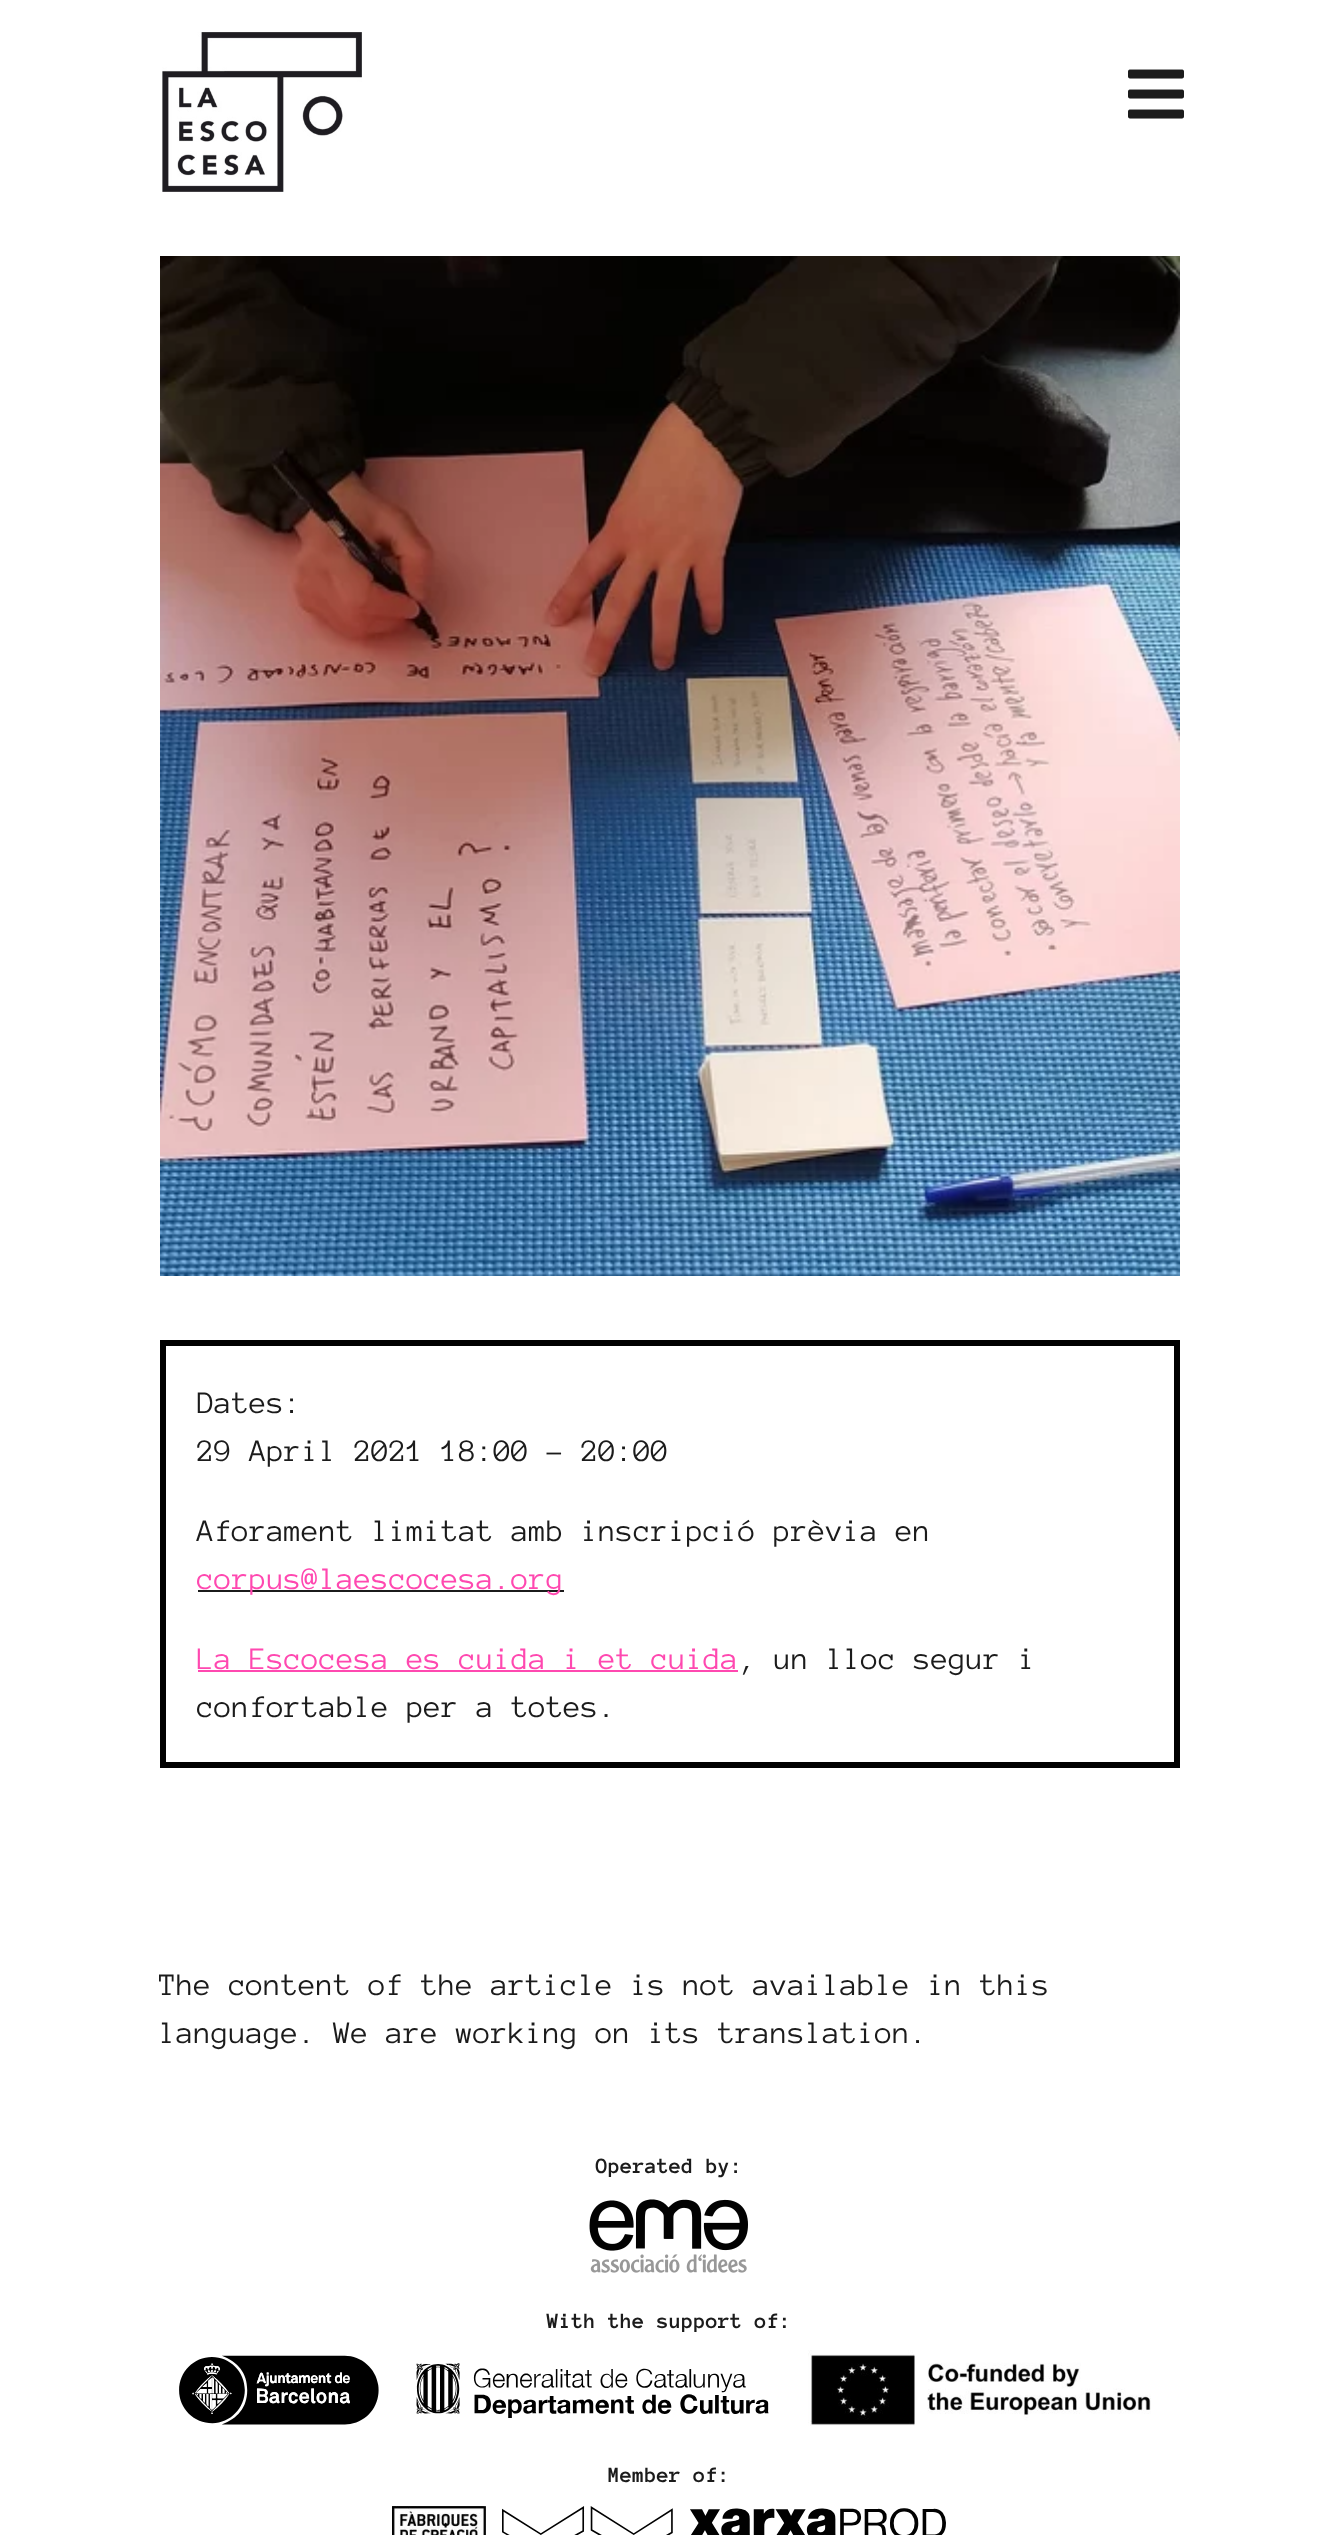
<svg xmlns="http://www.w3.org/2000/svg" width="1338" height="2535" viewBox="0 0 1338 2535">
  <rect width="100%" height="100%" fill="#ffffff"/>
  <image x="162" y="32" width="200" height="160" href="img1.png"/>
  <image x="1128" y="69" width="56" height="50" href="img2.png"/>
  <image x="160" y="256" width="1020" height="1020" href="img3.png"/>
  <rect x="163" y="1343" width="1014" height="422" fill="none" stroke="#000000" stroke-width="6"/>
  <text x="197" y="1413" font-family="Anonymous Pro" font-size="32" fill="#1b1b1b">Dates:</text>
  <text x="197" y="1461" font-family="Anonymous Pro" font-size="32" fill="#1b1b1b">29 April 2021 18:00 - 20:00</text>
  <text x="197" y="1541" font-family="Anonymous Pro" font-size="32" fill="#1b1b1b">Aforament limitat amb inscripció prèvia en</text>
  <rect x="198" y="1590" width="366" height="2" fill="#1b1b1b"/>
  <text x="197" y="1589" font-family="Anonymous Pro" font-size="32" fill="#ff48b0">corpus@laescocesa.org</text>
  <text x="197" y="1669" font-family="Anonymous Pro" font-size="32" fill="#ff48b0">La Escocesa es cuida i et cuida</text>
  <rect x="198" y="1670" width="540" height="2" fill="#ff48b0"/>
  <text x="739" y="1669" font-family="Anonymous Pro" font-size="32" fill="#1b1b1b">, un lloc segur i</text>
  <text x="197" y="1717" font-family="Anonymous Pro" font-size="32" fill="#1b1b1b">confortable per a totes.</text>
  <text x="159" y="1995" font-family="Anonymous Pro" font-size="32" fill="#1b1b1b">The content of the article is not available in this</text>
  <text x="159" y="2043" font-family="Anonymous Pro" font-size="32" fill="#1b1b1b">language. We are working on its translation.</text>
  <text x="596" y="2173" font-family="Anonymous Pro" font-size="22.4" font-weight="bold" fill="#1b1b1b">Operated by:</text>
  <image x="589" y="2199" width="159" height="74" href="img4.png"/>
  <text x="547" y="2328" font-family="Anonymous Pro" font-size="22.4" font-weight="bold" fill="#1b1b1b">With the support of:</text>
  <image x="179" y="2355" width="200" height="70" href="img5.png"/>
  <image x="416" y="2363" width="353" height="55" href="img6.png"/>
  <image x="808" y="2350" width="343" height="76" href="img7.png"/>
  <text x="608" y="2482" font-family="Anonymous Pro" font-size="22.4" font-weight="bold" fill="#1b1b1b">Member of:</text>
  <image x="392" y="2506" width="94" height="29" href="img8.png"/>
  <image x="502" y="2506" width="444" height="29" href="img9.png"/>
</svg>
